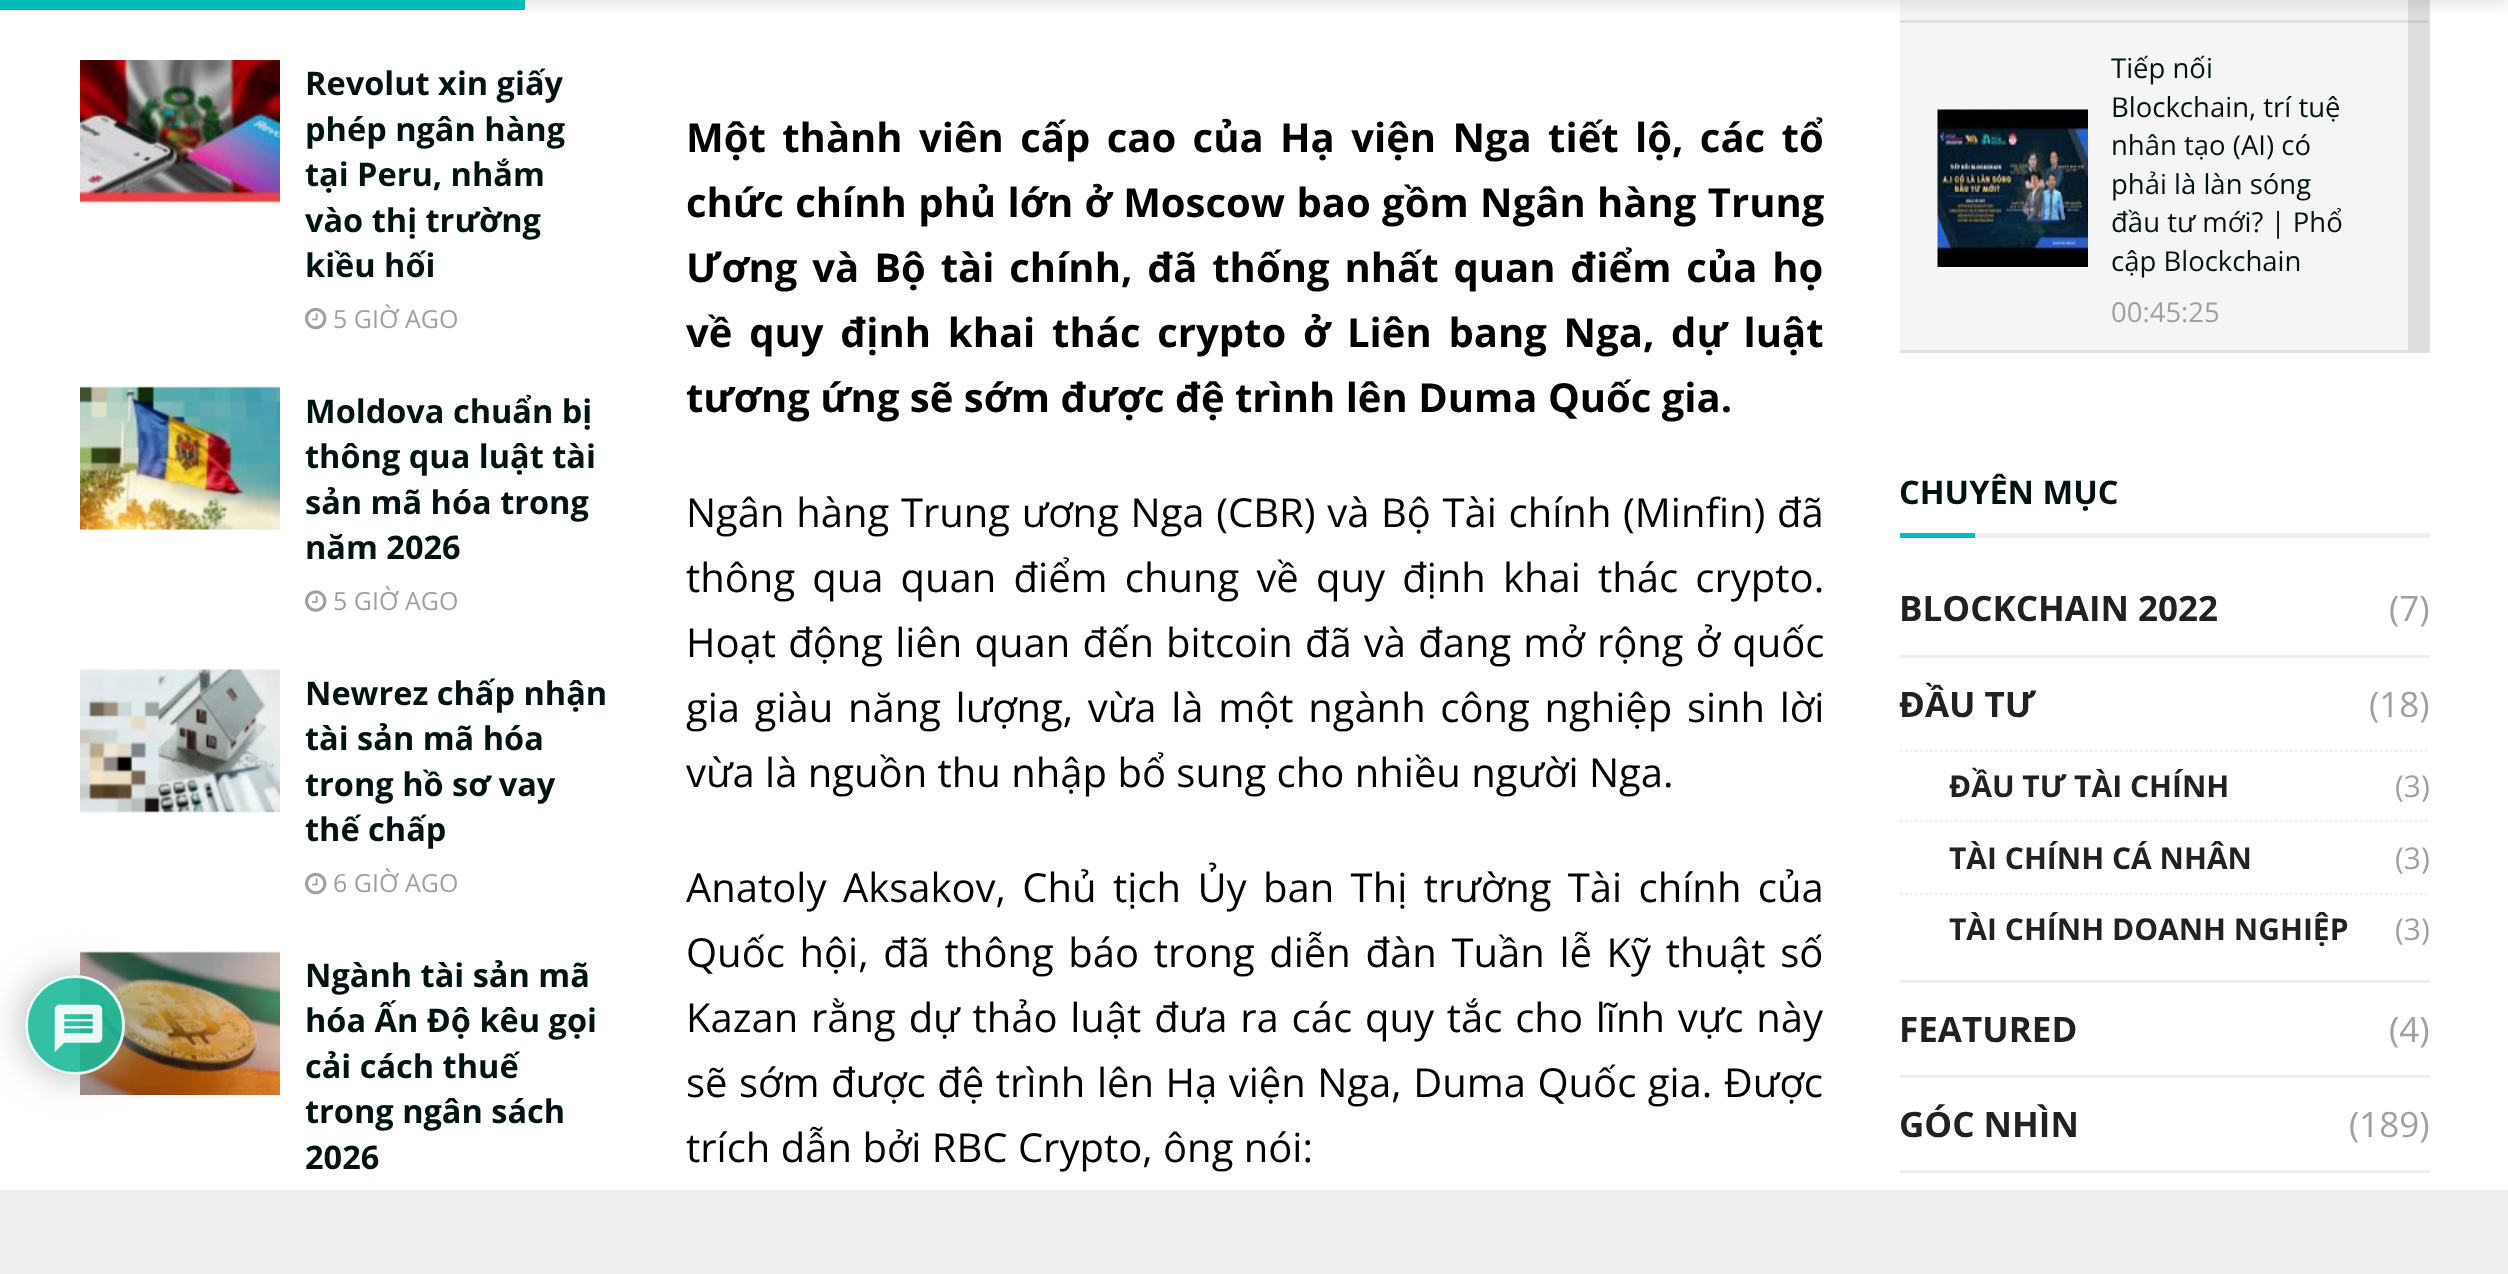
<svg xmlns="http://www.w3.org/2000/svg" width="2508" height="1274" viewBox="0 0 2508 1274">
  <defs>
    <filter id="blur1" x="-50%" y="-200%" width="200%" height="500%"><feGaussianBlur stdDeviation="7.5"/></filter>
    <clipPath id="clip1"><path d="M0 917H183V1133H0ZM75 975C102.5 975 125 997.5 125 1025C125 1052.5 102.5 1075 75 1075C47.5 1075 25 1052.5 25 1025C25 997.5 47.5 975 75 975Z" clip-rule="evenodd"/></clipPath>
    <filter id="blur2" x="-50%" y="-200%" width="200%" height="500%"><feGaussianBlur stdDeviation="19"/></filter>
  </defs>
  <rect width="100%" height="100%" fill="#ffffff"/>
  <rect x="1900" y="0" width="508" height="350" fill="#f5f5f5"/>
  <rect x="2408" y="0" width="20" height="350" fill="#dddddd"/>
  <rect x="2428" y="0" width="2" height="353" fill="#e0e0e0"/>
  <rect x="1900" y="20" width="508" height="3" fill="#e0e0e0"/>
  <rect x="2408" y="20" width="20" height="3" fill="#cacaca"/>
  <rect x="0" y="-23" width="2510" height="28" fill="#000000" fill-opacity="0.1" filter="url(#blur1)"/>
  <rect x="0" y="0" width="525" height="10" fill="#00babc"/>
  <rect x="80" y="952" width="200" height="1" fill="#fafafa"/>
  <image x="80" y="951" width="200" height="144" href="img7.png"/>
  <g clip-path="url(#clip1)">
    <rect x="25" y="975" width="100" height="100" rx="50" fill="#aaaaaa" fill-opacity="0.9" filter="url(#blur2)"/>
  </g>
  <circle cx="75" cy="1025" r="50" fill="#1db99a" fill-opacity="0.9"/>
  <circle cx="75" cy="1025" r="48.5" fill="none" stroke="#ffffff" stroke-opacity="0.9" stroke-width="3"/>
  <image x="54" y="1004" width="49" height="49" href="img1.png"/>
  <rect x="80" y="201" width="200" height="2" fill="#f7f7f7"/>
  <image x="80" y="60" width="200" height="143" href="img2.png"/>
  <text x="305" y="95" font-family="Open Sans" font-size="32.5" font-weight="bold" fill="#001212">Revolut xin giấy</text>
  <text x="305" y="141" font-family="Open Sans" font-size="32.5" font-weight="bold" fill="#001212">phép ngân hàng</text>
  <text x="305" y="186" font-family="Open Sans" font-size="32.5" font-weight="bold" fill="#001212">tại Peru, nhắm</text>
  <text x="305" y="232" font-family="Open Sans" font-size="32.5" font-weight="bold" fill="#001212">vào thị trường</text>
  <text x="305" y="277" font-family="Open Sans" font-size="32.5" font-weight="bold" fill="#001212">kiều hối</text>
  <image x="305" y="307" width="22" height="23" href="img3.png"/>
  <text x="333" y="328" font-family="Open Sans" font-size="25" fill="#a0a0a0">5 GIỜ AGO</text>
  <rect x="80" y="529" width="200" height="1" fill="#f7f7f7"/>
  <rect x="80" y="387" width="200" height="1" fill="#fafafa"/>
  <image x="80" y="386" width="200" height="144" href="img4.png"/>
  <text x="305" y="423" font-family="Open Sans" font-size="32.5" font-weight="bold" fill="#001212">Moldova chuẩn bị</text>
  <text x="305" y="468" font-family="Open Sans" font-size="32.5" font-weight="bold" fill="#001212">thông qua luật tài</text>
  <text x="305" y="514" font-family="Open Sans" font-size="32.5" font-weight="bold" fill="#001212">sản mã hóa trong</text>
  <text x="305" y="559" font-family="Open Sans" font-size="32.5" font-weight="bold" fill="#001212">năm 2026</text>
  <image x="305" y="590" width="22" height="22" href="img5.png"/>
  <text x="333" y="610" font-family="Open Sans" font-size="25" fill="#a0a0a0">5 GIỜ AGO</text>
  <rect x="80" y="811" width="200" height="2" fill="#f7f7f7"/>
  <image x="80" y="669" width="200" height="144" href="img6.png"/>
  <text x="305" y="705" font-family="Open Sans" font-size="32.5" font-weight="bold" fill="#001212">Newrez chấp nhận</text>
  <text x="305" y="750" font-family="Open Sans" font-size="32.5" font-weight="bold" fill="#001212">tài sản mã hóa</text>
  <text x="305" y="796" font-family="Open Sans" font-size="32.5" font-weight="bold" fill="#001212">trong hồ sơ vay</text>
  <text x="305" y="841" font-family="Open Sans" font-size="32.5" font-weight="bold" fill="#001212">thế chấp</text>
  <image x="305" y="872" width="22" height="23" href="img3.png"/>
  <text x="333" y="892" font-family="Open Sans" font-size="25" fill="#a0a0a0">6 GIỜ AGO</text>
  <text x="305" y="987" font-family="Open Sans" font-size="32.5" font-weight="bold" fill="#001212">Ngành tài sản mã</text>
  <text x="305" y="1032" font-family="Open Sans" font-size="32.5" font-weight="bold" fill="#001212">hóa Ấn Độ kêu gọi</text>
  <text x="305" y="1078" font-family="Open Sans" font-size="32.5" font-weight="bold" fill="#001212">cải cách thuế</text>
  <text x="305" y="1123" font-family="Open Sans" font-size="32.5" font-weight="bold" fill="#001212">trong ngân sách</text>
  <text x="305" y="1169" font-family="Open Sans" font-size="32.5" font-weight="bold" fill="#001212">2026</text>
  <text x="686" y="152" word-spacing="6" font-family="Open Sans" font-size="40" font-weight="bold" fill="#000000">Một thành viên cấp cao của Hạ viện Nga tiết lộ, các tổ</text>
  <text x="686" y="217" word-spacing="1" font-family="Open Sans" font-size="40" font-weight="bold" fill="#000000">chức chính phủ lớn ở Moscow bao gồm Ngân hàng Trung</text>
  <text x="686" y="282" word-spacing="4.5" font-family="Open Sans" font-size="40" font-weight="bold" fill="#000000">Ương và Bộ tài chính, đã thống nhất quan điểm của họ</text>
  <text x="686" y="347" word-spacing="6.4" font-family="Open Sans" font-size="40" font-weight="bold" fill="#000000">về quy định khai thác crypto ở Liên bang Nga, dự luật</text>
  <text x="686" y="412" font-family="Open Sans" font-size="40" font-weight="bold" fill="#000000">tương ứng sẽ sớm được đệ trình lên Duma Quốc gia.</text>
  <text x="686" y="527" word-spacing="1.25" font-family="Open Sans" font-size="40" fill="#000000">Ngân hàng Trung ương Nga (CBR) và Bộ Tài chính (Minfin) đã</text>
  <text x="686" y="592" word-spacing="6.75" font-family="Open Sans" font-size="40" fill="#000000">thông qua quan điểm chung về quy định khai thác crypto.</text>
  <text x="686" y="657" word-spacing="1.75" font-family="Open Sans" font-size="40" fill="#000000">Hoạt động liên quan đến bitcoin đã và đang mở rộng ở quốc</text>
  <text x="686" y="722" word-spacing="4.25" font-family="Open Sans" font-size="40" fill="#000000">gia giàu năng lượng, vừa là một ngành công nghiệp sinh lời</text>
  <text x="686" y="787" font-family="Open Sans" font-size="40" fill="#000000">vừa là nguồn thu nhập bổ sung cho nhiều người Nga.</text>
  <text x="686" y="902" word-spacing="6" font-family="Open Sans" font-size="40" fill="#000000">Anatoly Aksakov, Chủ tịch Ủy ban Thị trường Tài chính của</text>
  <text x="686" y="967" word-spacing="4.25" font-family="Open Sans" font-size="40" fill="#000000">Quốc hội, đã thông báo trong diễn đàn Tuần lễ Kỹ thuật số</text>
  <text x="686" y="1032" word-spacing="2.4" font-family="Open Sans" font-size="40" fill="#000000">Kazan rằng dự thảo luật đưa ra các quy tắc cho lĩnh vực này</text>
  <text x="686" y="1097" word-spacing="1.1" font-family="Open Sans" font-size="40" fill="#000000">sẽ sớm được đệ trình lên Hạ viện Nga, Duma Quốc gia. Được</text>
  <text x="686" y="1162" font-family="Open Sans" font-size="40" fill="#000000">trích dẫn bởi RBC Crypto, ông nói:</text>
  <rect x="1900" y="350" width="530" height="3" fill="#e0e0e0"/>
  <image x="1937" y="109" width="151" height="158" href="img8.png"/>
  <text x="2111" y="78" font-family="Open Sans" font-size="27.5" fill="#001212">Tiếp nối</text>
  <text x="2111" y="117" font-family="Open Sans" font-size="27.5" fill="#001212">Blockchain, trí tuệ</text>
  <text x="2111" y="155" font-family="Open Sans" font-size="27.5" fill="#001212">nhân tạo (AI) có</text>
  <text x="2111" y="194" font-family="Open Sans" font-size="27.5" fill="#001212">phải là làn sóng</text>
  <text x="2111" y="232" font-family="Open Sans" font-size="27.5" fill="#001212">đầu tư mới? | Phổ</text>
  <text x="2111" y="271" font-family="Open Sans" font-size="27.5" fill="#001212">cập Blockchain</text>
  <text x="2111" y="322" font-family="Open Sans" font-size="27.5" fill="#a0a0a0">00:45:25</text>
  <rect x="1975" y="533" width="455" height="5" fill="#eeeeee"/>
  <text x="1899" y="504" font-family="Open Sans" font-size="32.5" font-weight="bold" fill="#001212">CHUYÊN MỤC</text>
  <rect x="1900" y="533" width="75" height="5" fill="#00babc"/>
  <text x="1899" y="621" font-family="Open Sans" font-size="35" font-weight="bold" fill="#212121">BLOCKCHAIN 2022</text>
  <text x="2389" y="621" font-family="Open Sans" font-size="35" fill="#a0a0a0">(7)</text>
  <rect x="1900" y="655" width="530" height="3" fill="#eeeeee"/>
  <text x="1899" y="717" font-family="Open Sans" font-size="35" font-weight="bold" fill="#212121">ĐẦU TƯ</text>
  <text x="2369" y="717" font-family="Open Sans" font-size="35" fill="#a0a0a0">(18)</text>
  <path d="M1900 751H2430" fill="none" stroke="#eeeeee" stroke-width="2.5" stroke-dasharray="2.5 2.5"/>
  <text x="1949" y="797" font-family="Open Sans" font-size="30" font-weight="bold" fill="#212121">ĐẦU TƯ TÀI CHÍNH</text>
  <text x="2395" y="797" font-family="Open Sans" font-size="30" fill="#a0a0a0">(3)</text>
  <path d="M1900 821H2430" fill="none" stroke="#eeeeee" stroke-width="2.5" stroke-dasharray="2.5 2.5"/>
  <text x="1949" y="869" font-family="Open Sans" font-size="30" font-weight="bold" fill="#212121">TÀI CHÍNH CÁ NHÂN</text>
  <text x="2395" y="869" font-family="Open Sans" font-size="30" fill="#a0a0a0">(3)</text>
  <path d="M1900 894H2430" fill="none" stroke="#eeeeee" stroke-width="2.5" stroke-dasharray="2.5 2.5"/>
  <text x="1949" y="940" font-family="Open Sans" font-size="30" font-weight="bold" fill="#212121">TÀI CHÍNH DOANH NGHIỆP</text>
  <text x="2395" y="940" font-family="Open Sans" font-size="30" fill="#a0a0a0">(3)</text>
  <rect x="1900" y="980" width="530" height="3" fill="#eeeeee"/>
  <text x="1899" y="1042" font-family="Open Sans" font-size="35" font-weight="bold" fill="#212121">FEATURED</text>
  <text x="2389" y="1042" font-family="Open Sans" font-size="35" fill="#a0a0a0">(4)</text>
  <rect x="1900" y="1075" width="530" height="3" fill="#eeeeee"/>
  <text x="1899" y="1137" font-family="Open Sans" font-size="35" font-weight="bold" fill="#212121">GÓC NHÌN</text>
  <text x="2349" y="1137" font-family="Open Sans" font-size="35" fill="#a0a0a0">(189)</text>
  <rect x="1900" y="1170" width="530" height="3" fill="#eeeeee"/>
  <rect x="0" y="1190" width="2508" height="84" fill="#eeeeee"/>
</svg>
